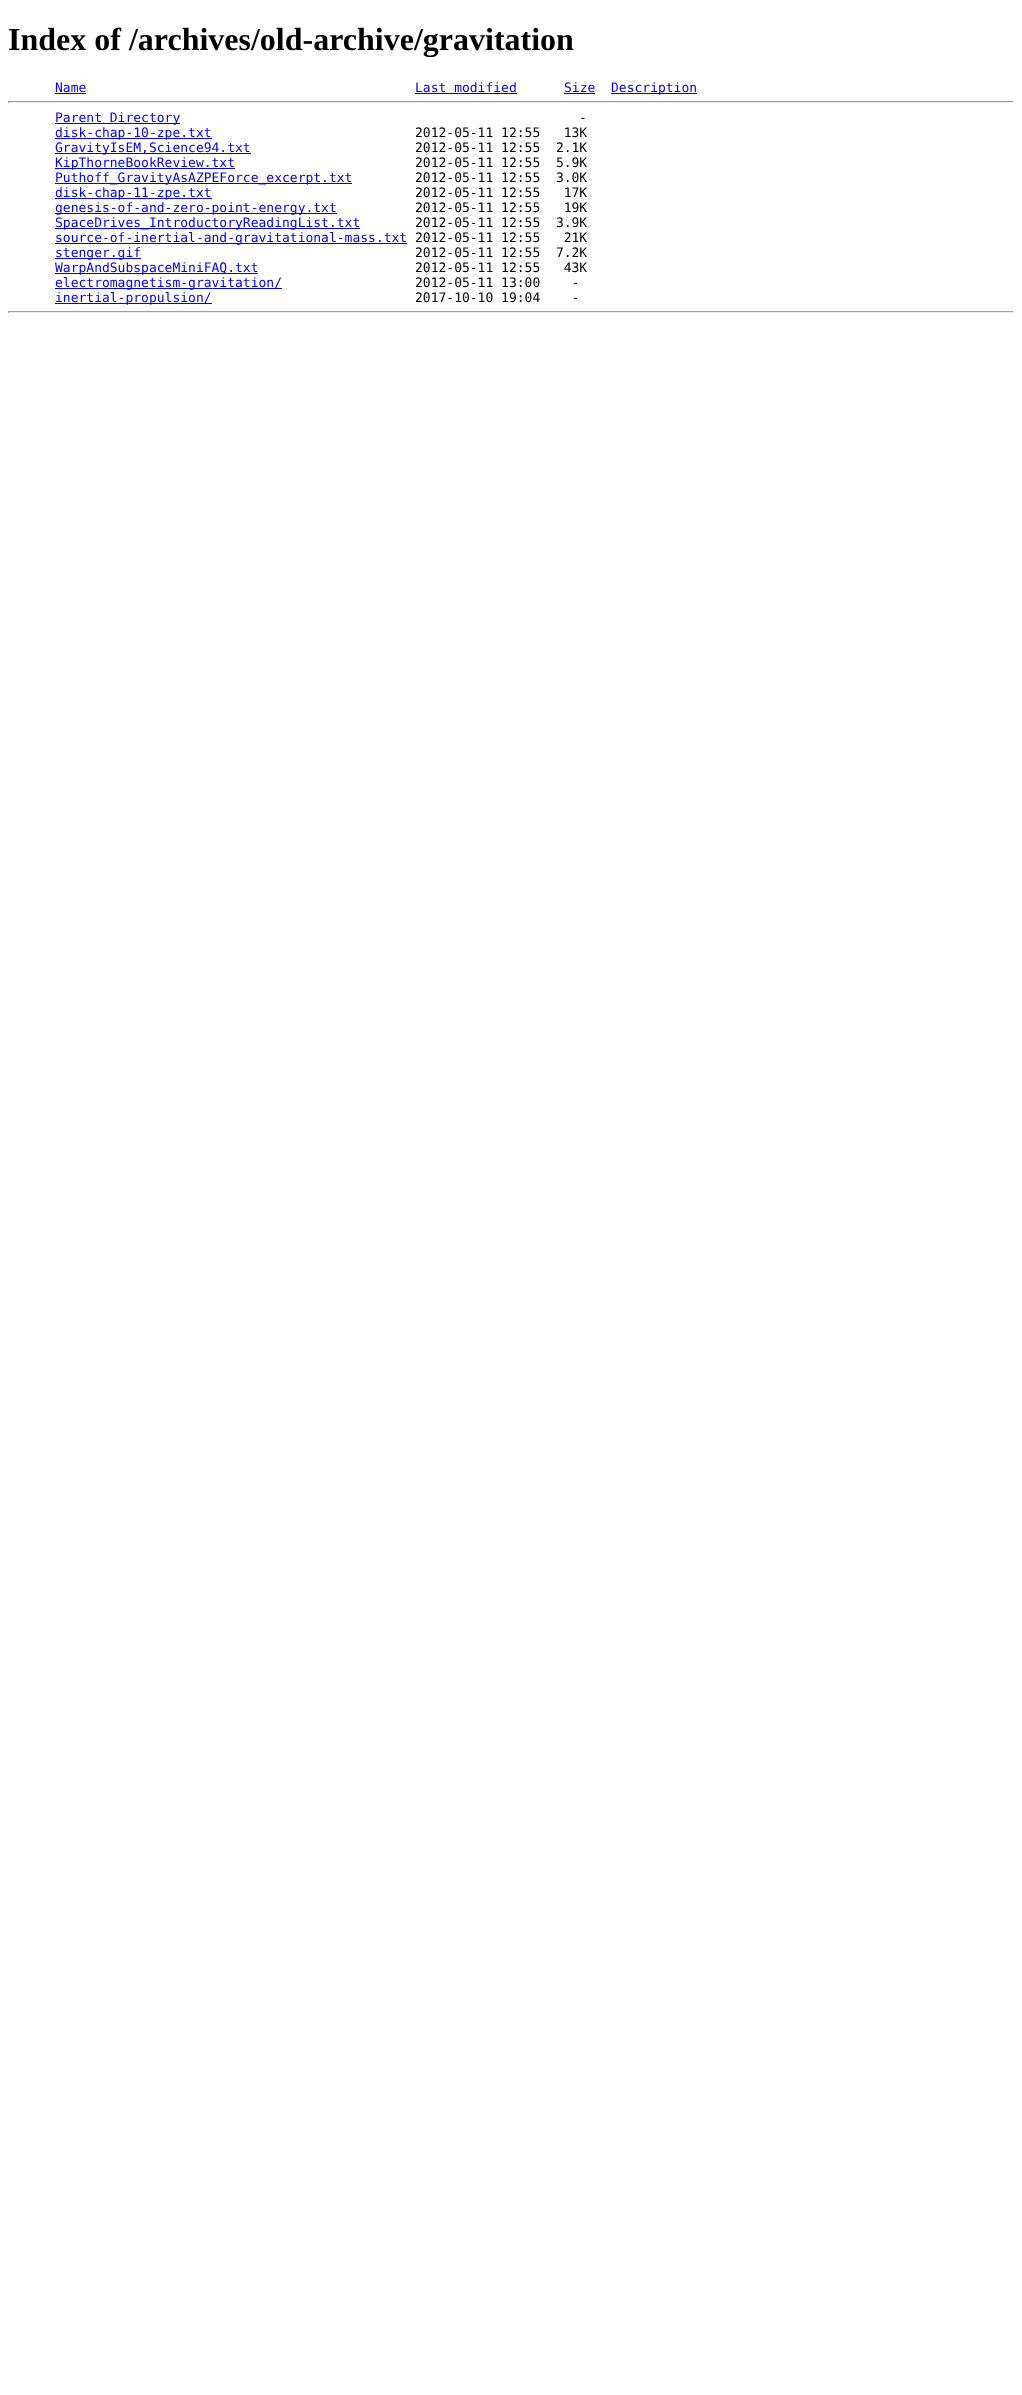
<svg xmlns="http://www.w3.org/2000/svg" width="1022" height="2395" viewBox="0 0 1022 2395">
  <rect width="100%" height="100%" fill="#ffffff"/>
  <text x="8" y="50" font-family="Liberation Serif" font-size="32" font-weight="bold" fill="#000000">Index of /archives/old-archive/gravitation</text>
  <text x="55" y="92" font-family="DejaVu Sans Mono" font-size="13" fill="#0000ee">Name</text>
  <rect x="55" y="93" width="31" height="1" fill="#0000ee"/>
  <text x="415" y="92" font-family="DejaVu Sans Mono" font-size="13" fill="#0000ee">Last modified</text>
  <rect x="415" y="93" width="102" height="1" fill="#0000ee"/>
  <text x="564" y="92" font-family="DejaVu Sans Mono" font-size="13" fill="#0000ee">Size</text>
  <rect x="564" y="93" width="31" height="1" fill="#0000ee"/>
  <rect x="611" y="93" width="86" height="1" fill="#0000ee"/>
  <text x="611" y="92" font-family="DejaVu Sans Mono" font-size="13" fill="#0000ee">Description</text>
  <rect x="8" y="101" width="1006" height="1" fill="#9f9f9f"/>
  <rect x="1013" y="101" width="1" height="2" fill="#eeeeee"/>
  <rect x="8" y="102" width="1006" height="1" fill="#eeeeee"/>
  <rect x="8" y="101" width="1" height="2" fill="#9f9f9f"/>
  <rect x="55" y="123" width="125" height="1" fill="#0000ee"/>
  <text x="55" y="122" font-family="DejaVu Sans Mono" font-size="13" fill="#0000ee">Parent Directory</text>
  <text x="579" y="122" font-family="DejaVu Sans Mono" font-size="13" fill="#000000">-</text>
  <rect x="55" y="138" width="157" height="1" fill="#0000ee"/>
  <text x="55" y="137" font-family="DejaVu Sans Mono" font-size="13" fill="#0000ee">disk-chap-10-zpe.txt</text>
  <text x="415" y="137" font-family="DejaVu Sans Mono" font-size="13" fill="#000000" xml:space="preserve">2012-05-11 12:55   13K</text>
  <rect x="55" y="153" width="196" height="1" fill="#0000ee"/>
  <text x="55" y="152" font-family="DejaVu Sans Mono" font-size="13" fill="#0000ee">GravityIsEM,Science94.txt</text>
  <text x="415" y="152" font-family="DejaVu Sans Mono" font-size="13" fill="#000000" xml:space="preserve">2012-05-11 12:55  2.1K</text>
  <rect x="55" y="168" width="180" height="1" fill="#0000ee"/>
  <text x="55" y="167" font-family="DejaVu Sans Mono" font-size="13" fill="#0000ee">KipThorneBookReview.txt</text>
  <text x="415" y="167" font-family="DejaVu Sans Mono" font-size="13" fill="#000000" xml:space="preserve">2012-05-11 12:55  5.9K</text>
  <rect x="55" y="183" width="297" height="1" fill="#0000ee"/>
  <text x="55" y="182" font-family="DejaVu Sans Mono" font-size="13" fill="#0000ee">Puthoff_GravityAsAZPEForce_excerpt.txt</text>
  <text x="415" y="182" font-family="DejaVu Sans Mono" font-size="13" fill="#000000" xml:space="preserve">2012-05-11 12:55  3.0K</text>
  <rect x="55" y="198" width="157" height="1" fill="#0000ee"/>
  <text x="55" y="197" font-family="DejaVu Sans Mono" font-size="13" fill="#0000ee">disk-chap-11-zpe.txt</text>
  <text x="415" y="197" font-family="DejaVu Sans Mono" font-size="13" fill="#000000" xml:space="preserve">2012-05-11 12:55   17K</text>
  <rect x="55" y="213" width="282" height="1" fill="#0000ee"/>
  <text x="55" y="212" font-family="DejaVu Sans Mono" font-size="13" fill="#0000ee">genesis-of-and-zero-point-energy.txt</text>
  <text x="415" y="212" font-family="DejaVu Sans Mono" font-size="13" fill="#000000" xml:space="preserve">2012-05-11 12:55   19K</text>
  <rect x="55" y="228" width="305" height="1" fill="#0000ee"/>
  <text x="55" y="227" font-family="DejaVu Sans Mono" font-size="13" fill="#0000ee">SpaceDrives_IntroductoryReadingList.txt</text>
  <text x="415" y="227" font-family="DejaVu Sans Mono" font-size="13" fill="#000000" xml:space="preserve">2012-05-11 12:55  3.9K</text>
  <rect x="55" y="243" width="352" height="1" fill="#0000ee"/>
  <text x="55" y="242" font-family="DejaVu Sans Mono" font-size="13" fill="#0000ee">source-of-inertial-and-gravitational-mass.txt</text>
  <text x="415" y="242" font-family="DejaVu Sans Mono" font-size="13" fill="#000000" xml:space="preserve">2012-05-11 12:55   21K</text>
  <rect x="55" y="258" width="86" height="1" fill="#0000ee"/>
  <text x="55" y="257" font-family="DejaVu Sans Mono" font-size="13" fill="#0000ee">stenger.gif</text>
  <text x="415" y="257" font-family="DejaVu Sans Mono" font-size="13" fill="#000000" xml:space="preserve">2012-05-11 12:55  7.2K</text>
  <rect x="55" y="273" width="203" height="1" fill="#0000ee"/>
  <text x="55" y="272" font-family="DejaVu Sans Mono" font-size="13" fill="#0000ee">WarpAndSubspaceMiniFAQ.txt</text>
  <text x="415" y="272" font-family="DejaVu Sans Mono" font-size="13" fill="#000000" xml:space="preserve">2012-05-11 12:55   43K</text>
  <rect x="55" y="288" width="227" height="1" fill="#0000ee"/>
  <text x="55" y="287" font-family="DejaVu Sans Mono" font-size="13" fill="#0000ee">electromagnetism-gravitation/</text>
  <text x="415" y="287" font-family="DejaVu Sans Mono" font-size="13" fill="#000000" xml:space="preserve">2012-05-11 13:00    -</text>
  <rect x="55" y="303" width="157" height="1" fill="#0000ee"/>
  <text x="55" y="302" font-family="DejaVu Sans Mono" font-size="13" fill="#0000ee">inertial-propulsion/</text>
  <text x="415" y="302" font-family="DejaVu Sans Mono" font-size="13" fill="#000000" xml:space="preserve">2017-10-10 19:04    -</text>
  <rect x="8" y="311" width="1006" height="1" fill="#9f9f9f"/>
  <rect x="1013" y="311" width="1" height="2" fill="#eeeeee"/>
  <rect x="8" y="312" width="1006" height="1" fill="#eeeeee"/>
  <rect x="8" y="311" width="1" height="2" fill="#9f9f9f"/>
</svg>
